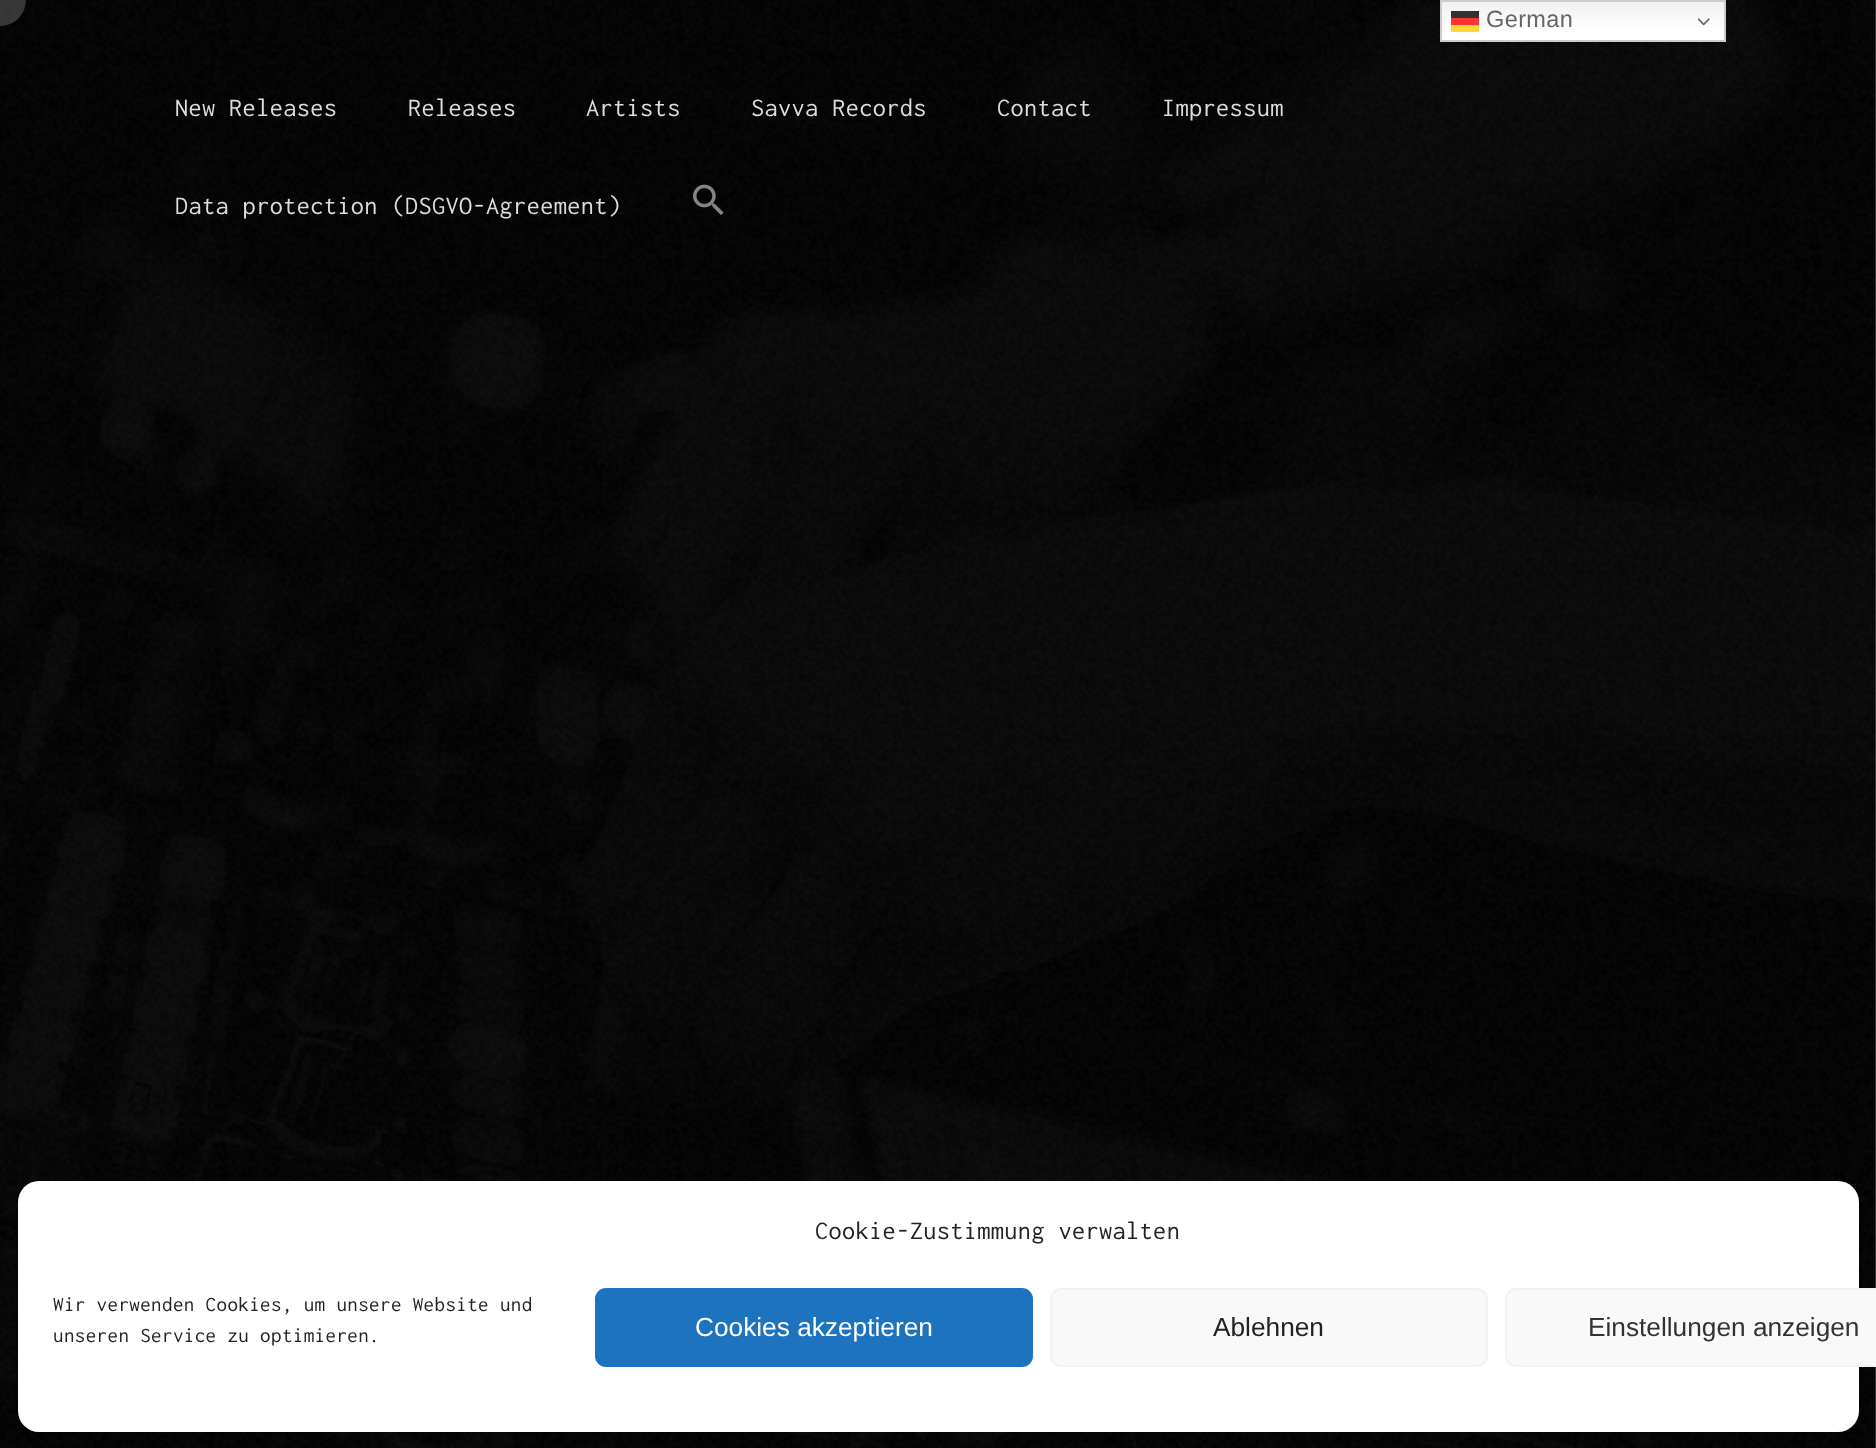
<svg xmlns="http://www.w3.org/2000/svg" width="1876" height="1448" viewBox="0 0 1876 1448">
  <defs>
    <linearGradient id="g1" gradientUnits="userSpaceOnUse" x1="1583" y1="0" x2="1583" y2="42"><stop offset="0" stop-color="#efefef"/><stop offset="0.7" stop-color="#ffffff"/></linearGradient>
  </defs>
  <rect width="100%" height="100%" fill="#ffffff"/>
  <image x="0" y="0" width="1876" height="1448" href="img1.png"/>
  <image x="0" y="0" width="1876" height="1448" href="img2.png"/>
  <circle cx="0" cy="0" r="26" fill="#ffffff" fill-opacity="0.2"/>
  <rect x="1442" y="2" width="282" height="38" fill="url(#g1)"/>
  <rect x="1441" y="1" width="284" height="40" fill="none" stroke="#cccccc" stroke-width="2"/>
  <rect x="1451" y="11" width="28" height="7" fill="#000000" fill-opacity="0.8"/>
  <text x="1486" y="27" font-family="Liberation Sans" font-size="23.5" letter-spacing="0.4" fill="#666666">German</text>
  <rect x="1451" y="18" width="28" height="7" fill="#ff0000" fill-opacity="0.8"/>
  <image x="1698" y="18" width="12" height="8" href="img3.png"/>
  <rect x="1451" y="25" width="28" height="7" fill="#ffd633"/>
  <text x="175" y="116" font-family="Inconsolata" font-size="26.25" letter-spacing="0.4" fill="#dddddd">New Releases</text>
  <text x="408" y="116" font-family="Inconsolata" font-size="26.25" letter-spacing="0.4" fill="#dddddd">Releases</text>
  <text x="586" y="116" font-family="Inconsolata" font-size="26.25" letter-spacing="0.4" fill="#dddddd">Artists</text>
  <text x="751" y="116" font-family="Inconsolata" font-size="26.25" letter-spacing="0.4" fill="#dddddd">Savva Records</text>
  <text x="997" y="116" font-family="Inconsolata" font-size="26.25" letter-spacing="0.4" fill="#dddddd">Contact</text>
  <text x="1162" y="116" font-family="Inconsolata" font-size="26.25" letter-spacing="0.4" fill="#dddddd">Impressum</text>
  <text x="175" y="214" font-family="Inconsolata" font-size="26.25" letter-spacing="0.4" fill="#dddddd">Data protection (DSGVO-Agreement)</text>
  <image x="693" y="184" width="31" height="31" href="img4.png"/>
  <rect x="18" y="1181" width="1841" height="251" rx="21" fill="#ffffff"/>
  <text x="815" y="1239" font-family="Inconsolata" font-size="26.25" letter-spacing="0.4" fill="#222222">Cookie-Zustimmung verwalten</text>
  <text x="53" y="1311" font-family="Inconsolata" font-size="21" letter-spacing="0.4" fill="#222222">Wir verwenden Cookies, um unsere Website und</text>
  <text x="53" y="1342" font-family="Inconsolata" font-size="21" letter-spacing="0.4" fill="#222222">unseren Service zu optimieren.</text>
  <rect x="596" y="1289" width="436" height="77" rx="10" fill="#1e73be" stroke="#1e73be" stroke-width="2"/>
  <text x="695" y="1336" font-family="Liberation Sans" font-size="26.25" fill="#ffffff">Cookies akzeptieren</text>
  <rect x="1051" y="1289" width="436" height="77" rx="10" fill="#f9f9f9" stroke="#f2f2f2" stroke-width="2"/>
  <text x="1213" y="1336" font-family="Liberation Sans" font-size="26.25" fill="#222222">Ablehnen</text>
  <rect x="1506" y="1289" width="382" height="77" rx="10" fill="#f9f9f9" stroke="#f2f2f2" stroke-width="2"/>
  <text x="1588" y="1336" font-family="Liberation Sans" font-size="26.25" fill="#333333">Einstellungen anzeigen</text>
</svg>
